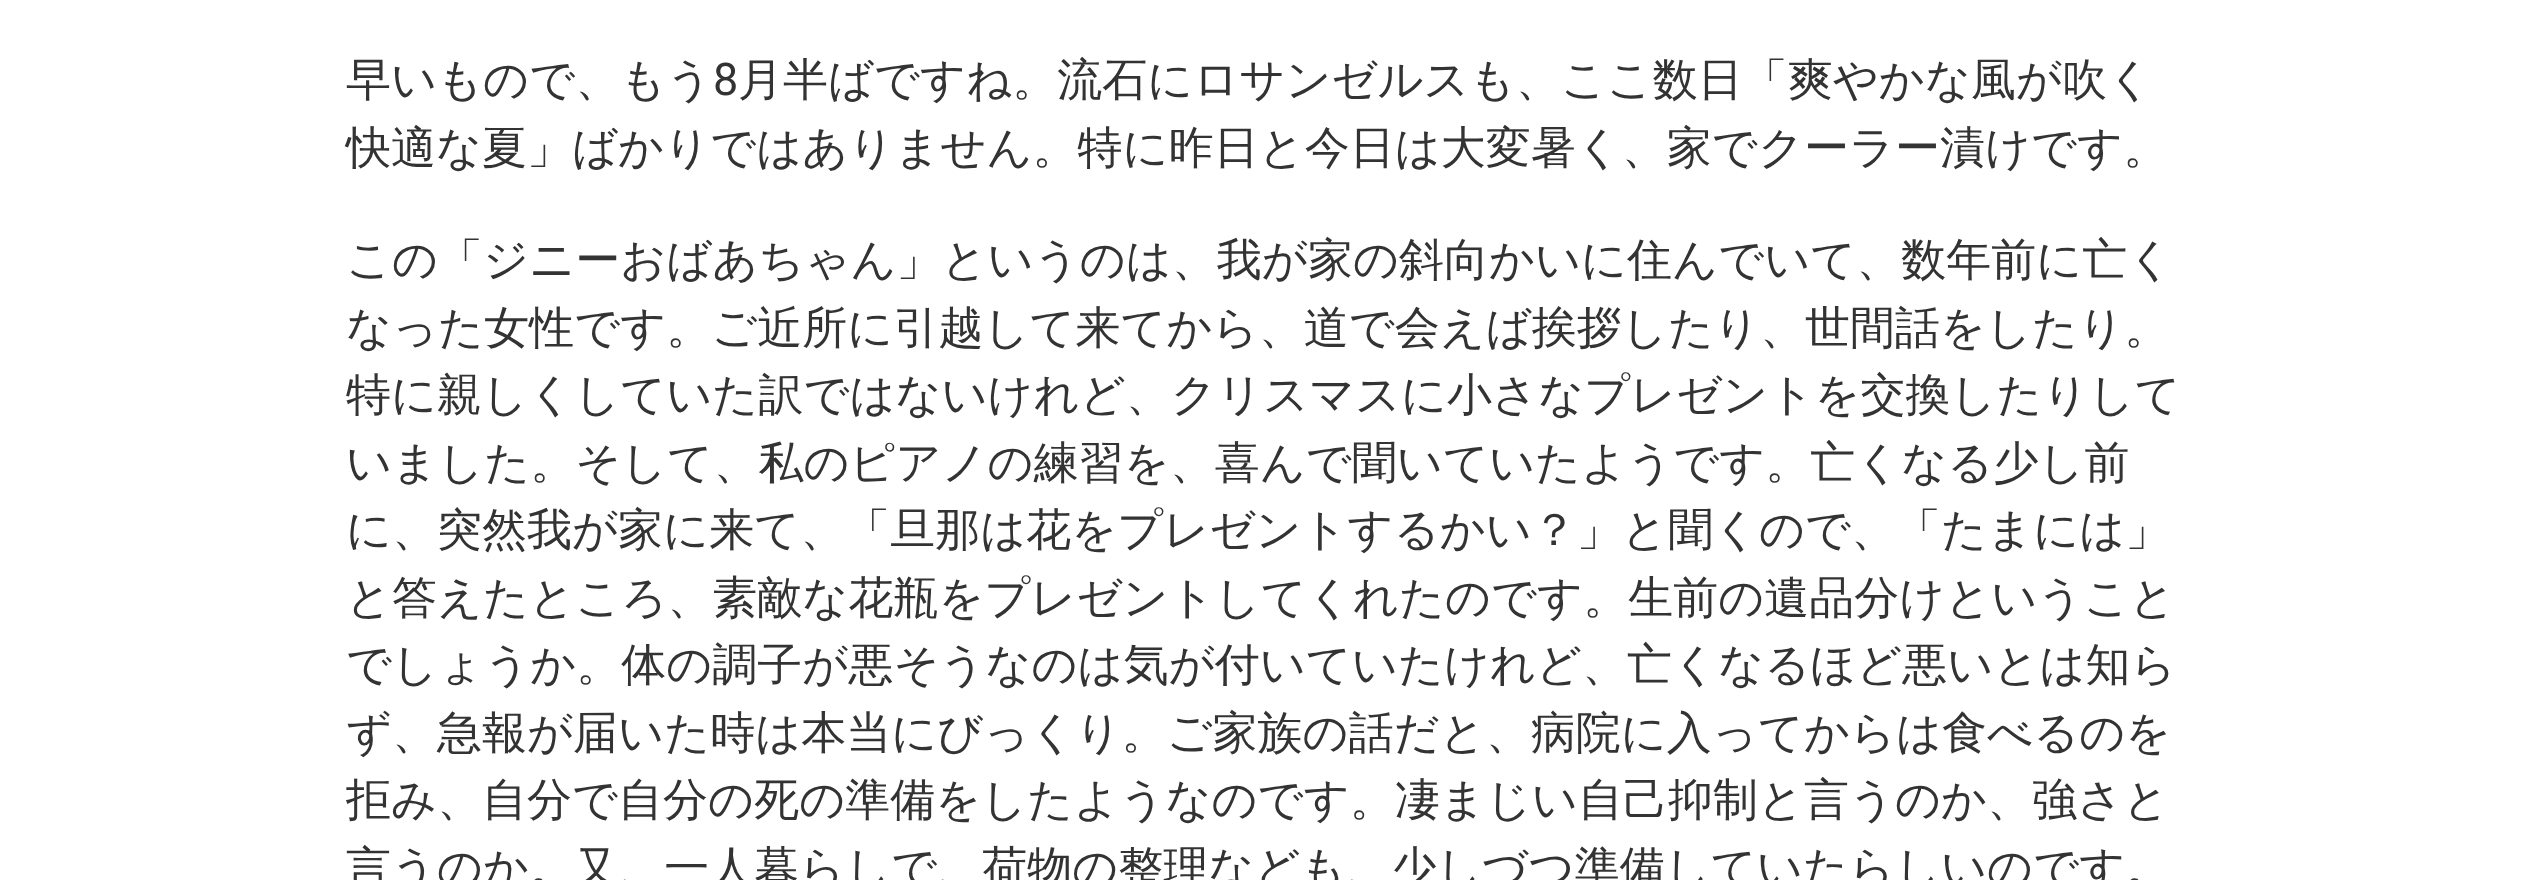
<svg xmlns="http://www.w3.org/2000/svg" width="2531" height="880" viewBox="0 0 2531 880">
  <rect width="100%" height="100%" fill="#ffffff"/>
  <text x="346" y="95" font-family="WenQuanYi Zen Hei" font-size="45" font-weight="500" fill="#333333">早いもので、もう</text>
  <text x="713" y="95" font-family="Roboto" font-size="45" fill="#333333">8</text>
  <text x="738" y="95" font-family="WenQuanYi Zen Hei" font-size="45" font-weight="500" fill="#333333">月半ばですね。流石にロサンゼルスも、ここ数日「爽やかな風が吹く</text>
  <text x="346" y="163" font-family="WenQuanYi Zen Hei" font-size="45" font-weight="500" fill="#333333">快適な夏」ばかりではありません。特に昨日と今日は大変暑く、家でクーラー漬けです。</text>
  <text x="346" y="275" font-family="WenQuanYi Zen Hei" font-size="45" font-weight="500" fill="#333333">この「ジニーおばあちゃん」というのは、我が家の斜向かいに住んでいて、数年前に亡く</text>
  <text x="346" y="343" font-family="WenQuanYi Zen Hei" font-size="45" font-weight="500" fill="#333333">なった女性です。ご近所に引越して来てから、道で会えば挨拶したり、世間話をしたり。</text>
  <text x="346" y="410" font-family="WenQuanYi Zen Hei" font-size="45" font-weight="500" fill="#333333">特に親しくしていた訳ではないけれど、クリスマスに小さなプレゼントを交換したりして</text>
  <text x="346" y="478" font-family="WenQuanYi Zen Hei" font-size="45" font-weight="500" fill="#333333">いました。そして、私のピアノの練習を、喜んで聞いていたようです。亡くなる少し前</text>
  <text x="346" y="545" font-family="WenQuanYi Zen Hei" font-size="45" font-weight="500" fill="#333333">に、突然我が家に来て、「旦那は花をプレゼントするかい？」と聞くので、「たまには」</text>
  <text x="346" y="613" font-family="WenQuanYi Zen Hei" font-size="45" font-weight="500" fill="#333333">と答えたところ、素敵な花瓶をプレゼントしてくれたのです。生前の遺品分けということ</text>
  <text x="346" y="680" font-family="WenQuanYi Zen Hei" font-size="45" font-weight="500" fill="#333333">でしょうか。体の調子が悪そうなのは気が付いていたけれど、亡くなるほど悪いとは知ら</text>
  <text x="346" y="748" font-family="WenQuanYi Zen Hei" font-size="45" font-weight="500" fill="#333333">ず、急報が届いた時は本当にびっくり。ご家族の話だと、病院に入ってからは食べるのを</text>
  <text x="346" y="815" font-family="WenQuanYi Zen Hei" font-size="45" font-weight="500" fill="#333333">拒み、自分で自分の死の準備をしたようなのです。凄まじい自己抑制と言うのか、強さと</text>
  <text x="346" y="883" font-family="WenQuanYi Zen Hei" font-size="45" font-weight="500" fill="#333333">言うのか。又、一人暮らしで、荷物の整理なども、少しづつ準備していたらしいのです。</text>
</svg>
